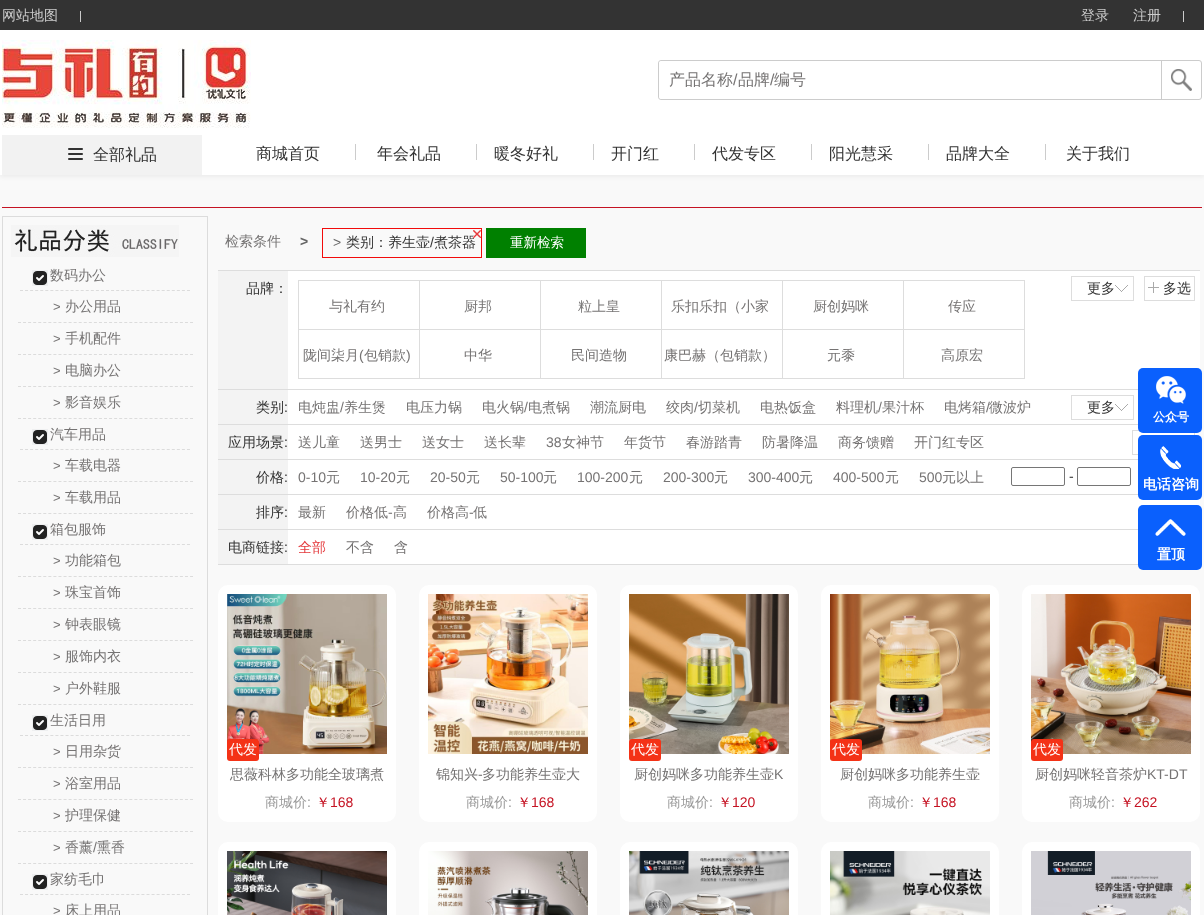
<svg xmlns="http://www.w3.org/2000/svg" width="1204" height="915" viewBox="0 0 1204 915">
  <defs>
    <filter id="blur1" x="-50%" y="-200%" width="200%" height="500%"><feGaussianBlur stdDeviation="2"/></filter>
  </defs>
  <rect width="100%" height="100%" fill="#f9f9f9"/>
  <rect x="0" y="0" width="1204" height="30" fill="#333333"/>
  <text x="2" y="20" font-family="WenQuanYi Zen Hei" font-size="14" font-weight="500" fill="#cccccc">网站地图</text>
  <rect x="80" y="11" width="1" height="11" fill="#cbcbcb"/>
  <text x="1081" y="20" font-family="WenQuanYi Zen Hei" font-size="14" font-weight="500" fill="#cccccc">登录</text>
  <text x="1133" y="20" font-family="WenQuanYi Zen Hei" font-size="14" font-weight="500" fill="#cccccc">注册</text>
  <rect x="1183" y="11" width="1" height="11" fill="#cccccc"/>
  <rect x="0" y="32" width="1204" height="145" fill="#000000" fill-opacity="0.05" filter="url(#blur1)"/>
  <rect x="0" y="30" width="1204" height="145" fill="#ffffff"/>
  <image x="2" y="40" width="249" height="88" href="img1.png"/>
  <rect x="658.5" y="60.5" width="543" height="39" rx="2.5" fill="none" stroke="#cccccc"/>
  <rect x="659" y="61" width="498" height="38" rx="3" fill="#ffffff"/>
  <text x="669" y="85" font-family="WenQuanYi Zen Hei" font-size="16" font-weight="500" fill="#757373">产品名称</text>
  <text x="733" y="85" font-family="Liberation Sans" font-size="16" fill="#757373">/</text>
  <text x="738" y="85" font-family="WenQuanYi Zen Hei" font-size="16" font-weight="500" fill="#757373">品牌</text>
  <text x="770" y="85" font-family="Liberation Sans" font-size="16" fill="#757373">/</text>
  <text x="774" y="85" font-family="WenQuanYi Zen Hei" font-size="16" font-weight="500" fill="#757373">编号</text>
  <image x="1171" y="69" width="21" height="22" href="img2.png"/>
  <rect x="1161" y="61" width="1" height="38" fill="#cccccc"/>
  <rect x="2" y="135" width="200" height="40" fill="#f2f2f2"/>
  <image x="68" y="148" width="15" height="12" href="img3.png"/>
  <text x="93" y="160" font-family="WenQuanYi Zen Hei" font-size="16" font-weight="500" fill="#333333">全部礼品</text>
  <rect x="355" y="144" width="1" height="16" fill="#cccccc"/>
  <text x="256" y="159" font-family="WenQuanYi Zen Hei" font-size="16" font-weight="500" fill="#333333">商城首页</text>
  <rect x="476" y="144" width="1" height="16" fill="#cccccc"/>
  <text x="377" y="159" font-family="WenQuanYi Zen Hei" font-size="16" font-weight="500" fill="#333333">年会礼品</text>
  <rect x="593" y="144" width="1" height="16" fill="#cccccc"/>
  <text x="494" y="159" font-family="WenQuanYi Zen Hei" font-size="16" font-weight="500" fill="#333333">暖冬好礼</text>
  <rect x="694" y="144" width="1" height="16" fill="#cccccc"/>
  <text x="611" y="159" font-family="WenQuanYi Zen Hei" font-size="16" font-weight="500" fill="#333333">开门红</text>
  <rect x="811" y="144" width="1" height="16" fill="#cccccc"/>
  <text x="712" y="159" font-family="WenQuanYi Zen Hei" font-size="16" font-weight="500" fill="#333333">代发专区</text>
  <rect x="928" y="144" width="1" height="16" fill="#cccccc"/>
  <text x="829" y="159" font-family="WenQuanYi Zen Hei" font-size="16" font-weight="500" fill="#333333">阳光慧采</text>
  <rect x="1045" y="144" width="1" height="16" fill="#cccccc"/>
  <text x="946" y="159" font-family="WenQuanYi Zen Hei" font-size="16" font-weight="500" fill="#333333">品牌大全</text>
  <text x="1066" y="159" font-family="WenQuanYi Zen Hei" font-size="16" font-weight="500" fill="#333333">关于我们</text>
  <rect x="2" y="207" width="1200" height="1" fill="#c51323"/>
  <rect x="2.5" y="216.5" width="205" height="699" fill="none" stroke="#dcdcdc"/>
  <image x="11" y="225" width="168" height="32" href="img4.png"/>
  <image x="32" y="270" width="16" height="16" href="img5.png"/>
  <path d="M20 290.5H190" fill="none" stroke="#dcdcdc" stroke-dasharray="3 2.06"/>
  <text x="50" y="280" font-family="WenQuanYi Zen Hei" font-size="14" font-weight="500" fill="#757373">数码办公</text>
  <path d="M18 322.5H193" fill="none" stroke="#dcdcdc" stroke-dasharray="3 2.06"/>
  <text x="53" y="311" font-family="Liberation Sans" font-size="13" fill="#757373">&gt;</text>
  <text x="65" y="311" font-family="WenQuanYi Zen Hei" font-size="14" font-weight="500" fill="#757373">办公用品</text>
  <path d="M18 354.5H193" fill="none" stroke="#dcdcdc" stroke-dasharray="3 2.06"/>
  <text x="53" y="343" font-family="Liberation Sans" font-size="13" fill="#757373">&gt;</text>
  <text x="65" y="343" font-family="WenQuanYi Zen Hei" font-size="14" font-weight="500" fill="#757373">手机配件</text>
  <path d="M18 386.5H193" fill="none" stroke="#dcdcdc" stroke-dasharray="3 2.06"/>
  <text x="53" y="375" font-family="Liberation Sans" font-size="13" fill="#757373">&gt;</text>
  <text x="65" y="375" font-family="WenQuanYi Zen Hei" font-size="14" font-weight="500" fill="#757373">电脑办公</text>
  <path d="M18 418.5H193" fill="none" stroke="#dcdcdc" stroke-dasharray="3 2.06"/>
  <text x="53" y="407" font-family="Liberation Sans" font-size="13" fill="#757373">&gt;</text>
  <text x="65" y="407" font-family="WenQuanYi Zen Hei" font-size="14" font-weight="500" fill="#757373">影音娱乐</text>
  <image x="32" y="429" width="16" height="16" href="img5.png"/>
  <path d="M20 449.5H190" fill="none" stroke="#dcdcdc" stroke-dasharray="3 2.06"/>
  <text x="50" y="439" font-family="WenQuanYi Zen Hei" font-size="14" font-weight="500" fill="#757373">汽车用品</text>
  <path d="M18 481.5H193" fill="none" stroke="#dcdcdc" stroke-dasharray="3 2.06"/>
  <text x="53" y="470" font-family="Liberation Sans" font-size="13" fill="#757373">&gt;</text>
  <text x="65" y="470" font-family="WenQuanYi Zen Hei" font-size="14" font-weight="500" fill="#757373">车载电器</text>
  <path d="M18 513.5H193" fill="none" stroke="#dcdcdc" stroke-dasharray="3 2.06"/>
  <text x="53" y="502" font-family="Liberation Sans" font-size="13" fill="#757373">&gt;</text>
  <text x="65" y="502" font-family="WenQuanYi Zen Hei" font-size="14" font-weight="500" fill="#757373">车载用品</text>
  <image x="32" y="524" width="16" height="16" href="img5.png"/>
  <path d="M20 544.5H190" fill="none" stroke="#dcdcdc" stroke-dasharray="3 2.06"/>
  <text x="50" y="534" font-family="WenQuanYi Zen Hei" font-size="14" font-weight="500" fill="#757373">箱包服饰</text>
  <path d="M18 576.5H193" fill="none" stroke="#dcdcdc" stroke-dasharray="3 2.06"/>
  <text x="53" y="565" font-family="Liberation Sans" font-size="13" fill="#757373">&gt;</text>
  <text x="65" y="565" font-family="WenQuanYi Zen Hei" font-size="14" font-weight="500" fill="#757373">功能箱包</text>
  <path d="M18 608.5H193" fill="none" stroke="#dcdcdc" stroke-dasharray="3 2.06"/>
  <text x="53" y="597" font-family="Liberation Sans" font-size="13" fill="#757373">&gt;</text>
  <text x="65" y="597" font-family="WenQuanYi Zen Hei" font-size="14" font-weight="500" fill="#757373">珠宝首饰</text>
  <path d="M18 640.5H193" fill="none" stroke="#dcdcdc" stroke-dasharray="3 2.06"/>
  <text x="53" y="629" font-family="Liberation Sans" font-size="13" fill="#757373">&gt;</text>
  <text x="65" y="629" font-family="WenQuanYi Zen Hei" font-size="14" font-weight="500" fill="#757373">钟表眼镜</text>
  <path d="M18 672.5H193" fill="none" stroke="#dcdcdc" stroke-dasharray="3 2.06"/>
  <text x="53" y="661" font-family="Liberation Sans" font-size="13" fill="#757373">&gt;</text>
  <text x="65" y="661" font-family="WenQuanYi Zen Hei" font-size="14" font-weight="500" fill="#757373">服饰内衣</text>
  <path d="M18 704.5H193" fill="none" stroke="#dcdcdc" stroke-dasharray="3 2.06"/>
  <text x="53" y="693" font-family="Liberation Sans" font-size="13" fill="#757373">&gt;</text>
  <text x="65" y="693" font-family="WenQuanYi Zen Hei" font-size="14" font-weight="500" fill="#757373">户外鞋服</text>
  <image x="32" y="715" width="16" height="16" href="img5.png"/>
  <path d="M20 735.5H190" fill="none" stroke="#dcdcdc" stroke-dasharray="3 2.06"/>
  <text x="50" y="725" font-family="WenQuanYi Zen Hei" font-size="14" font-weight="500" fill="#757373">生活日用</text>
  <path d="M18 767.5H193" fill="none" stroke="#dcdcdc" stroke-dasharray="3 2.06"/>
  <text x="53" y="756" font-family="Liberation Sans" font-size="13" fill="#757373">&gt;</text>
  <text x="65" y="756" font-family="WenQuanYi Zen Hei" font-size="14" font-weight="500" fill="#757373">日用杂货</text>
  <path d="M18 799.5H193" fill="none" stroke="#dcdcdc" stroke-dasharray="3 2.06"/>
  <text x="53" y="788" font-family="Liberation Sans" font-size="13" fill="#757373">&gt;</text>
  <text x="65" y="788" font-family="WenQuanYi Zen Hei" font-size="14" font-weight="500" fill="#757373">浴室用品</text>
  <path d="M18 831.5H193" fill="none" stroke="#dcdcdc" stroke-dasharray="3 2.06"/>
  <text x="53" y="820" font-family="Liberation Sans" font-size="13" fill="#757373">&gt;</text>
  <text x="65" y="820" font-family="WenQuanYi Zen Hei" font-size="14" font-weight="500" fill="#757373">护理保健</text>
  <path d="M18 863.5H193" fill="none" stroke="#dcdcdc" stroke-dasharray="3 2.06"/>
  <text x="53" y="852" font-family="Liberation Sans" font-size="13" fill="#757373">&gt;</text>
  <text x="65" y="852" font-family="WenQuanYi Zen Hei" font-size="14" font-weight="500" fill="#757373">香薰</text>
  <text x="93" y="852" font-family="Liberation Sans" font-size="14" fill="#757373">/</text>
  <text x="97" y="852" font-family="WenQuanYi Zen Hei" font-size="14" font-weight="500" fill="#757373">熏香</text>
  <image x="32" y="874" width="16" height="16" href="img5.png"/>
  <path d="M20 894.5H190" fill="none" stroke="#dcdcdc" stroke-dasharray="3 2.06"/>
  <text x="50" y="884" font-family="WenQuanYi Zen Hei" font-size="14" font-weight="500" fill="#757373">家纺毛巾</text>
  <text x="53" y="915" font-family="Liberation Sans" font-size="13" fill="#757373">&gt;</text>
  <text x="65" y="915" font-family="WenQuanYi Zen Hei" font-size="14" font-weight="500" fill="#757373">床上用品</text>
  <text x="225" y="246" font-family="WenQuanYi Zen Hei" font-size="14" font-weight="500" fill="#757373">检索条件</text>
  <text x="300" y="246" font-family="Liberation Sans" font-size="14" font-weight="bold" fill="#666666">&gt;</text>
  <rect x="322.5" y="228.5" width="159" height="29" fill="none" stroke="#f20b0b"/>
  <text x="430" y="247" font-family="Liberation Sans" font-size="14" fill="#333333">/</text>
  <text x="434" y="247" font-family="WenQuanYi Zen Hei" font-size="14" font-weight="500" fill="#333333">煮茶器</text>
  <image x="473" y="230" width="8" height="8" href="img6.png"/>
  <text x="333" y="247" font-family="Liberation Sans" font-size="14" fill="#666666">&gt;</text>
  <text x="346" y="247" font-family="WenQuanYi Zen Hei" font-size="14" font-weight="500" fill="#333333">类别：养生壶</text>
  <rect x="486" y="228" width="100" height="30" fill="#008000"/>
  <text x="510" y="247" font-family="WenQuanYi Zen Hei" font-size="13.5" font-weight="500" fill="#ffffff">重新检索</text>
  <rect x="218" y="270" width="982" height="1" fill="#dddddd"/>
  <rect x="218" y="271" width="70" height="118" fill="#f3f3f3"/>
  <rect x="218" y="389" width="920" height="1" fill="#dddddd"/>
  <text x="246" y="293" font-family="WenQuanYi Zen Hei" font-size="14" font-weight="500" fill="#333333">品牌：</text>
  <rect x="288" y="271" width="912" height="118" fill="#ffffff"/>
  <rect x="1071.5" y="276.5" width="62" height="24" fill="none" stroke="#dddddd"/>
  <text x="1087" y="293" font-family="WenQuanYi Zen Hei" font-size="14" font-weight="500" fill="#333333">更多</text>
  <image x="1115" y="285" width="13" height="7" href="img7.png"/>
  <rect x="1144.5" y="276.5" width="50" height="24" fill="none" stroke="#dddddd"/>
  <image x="1148" y="282" width="11" height="11" href="img8.png"/>
  <text x="1163" y="293" font-family="WenQuanYi Zen Hei" font-size="14" font-weight="500" fill="#333333">多选</text>
  <rect x="298.5" y="280.5" width="121" height="49" fill="none" stroke="#dddddd"/>
  <text x="329" y="311" font-family="WenQuanYi Zen Hei" font-size="14" font-weight="500" fill="#757373">与礼有约</text>
  <rect x="419.5" y="280.5" width="121" height="49" fill="none" stroke="#dddddd"/>
  <text x="464" y="311" font-family="WenQuanYi Zen Hei" font-size="14" font-weight="500" fill="#757373">厨邦</text>
  <rect x="540.5" y="280.5" width="121" height="49" fill="none" stroke="#dddddd"/>
  <text x="578" y="311" font-family="WenQuanYi Zen Hei" font-size="14" font-weight="500" fill="#757373">粒上皇</text>
  <rect x="661.5" y="280.5" width="121" height="49" fill="none" stroke="#dddddd"/>
  <text x="671" y="311" font-family="WenQuanYi Zen Hei" font-size="14" font-weight="500" fill="#757373">乐扣乐扣（小家</text>
  <rect x="782.5" y="280.5" width="121" height="49" fill="none" stroke="#dddddd"/>
  <text x="813" y="311" font-family="WenQuanYi Zen Hei" font-size="14" font-weight="500" fill="#757373">厨创妈咪</text>
  <rect x="903.5" y="280.5" width="121" height="49" fill="none" stroke="#dddddd"/>
  <text x="948" y="311" font-family="WenQuanYi Zen Hei" font-size="14" font-weight="500" fill="#757373">传应</text>
  <rect x="298.5" y="329.5" width="121" height="49" fill="none" stroke="#dddddd"/>
  <text x="303" y="360" font-family="WenQuanYi Zen Hei" font-size="14" font-weight="500" fill="#757373">陇间柒月</text>
  <text x="359" y="360" font-family="Liberation Sans" font-size="14" fill="#757373">(</text>
  <text x="364" y="360" font-family="WenQuanYi Zen Hei" font-size="14" font-weight="500" fill="#757373">包销款</text>
  <text x="406" y="360" font-family="Liberation Sans" font-size="14" fill="#757373">)</text>
  <rect x="419.5" y="329.5" width="121" height="49" fill="none" stroke="#dddddd"/>
  <text x="464" y="360" font-family="WenQuanYi Zen Hei" font-size="14" font-weight="500" fill="#757373">中华</text>
  <rect x="540.5" y="329.5" width="121" height="49" fill="none" stroke="#dddddd"/>
  <text x="571" y="360" font-family="WenQuanYi Zen Hei" font-size="14" font-weight="500" fill="#757373">民间造物</text>
  <rect x="661.5" y="329.5" width="121" height="49" fill="none" stroke="#dddddd"/>
  <text x="664" y="360" font-family="WenQuanYi Zen Hei" font-size="14" font-weight="500" fill="#757373">康巴赫（包销款）</text>
  <rect x="782.5" y="329.5" width="121" height="49" fill="none" stroke="#dddddd"/>
  <text x="827" y="360" font-family="WenQuanYi Zen Hei" font-size="14" font-weight="500" fill="#757373">元黍</text>
  <rect x="903.5" y="329.5" width="121" height="49" fill="none" stroke="#dddddd"/>
  <text x="941" y="360" font-family="WenQuanYi Zen Hei" font-size="14" font-weight="500" fill="#757373">高原宏</text>
  <rect x="218" y="390" width="70" height="34" fill="#f3f3f3"/>
  <rect x="218" y="424" width="920" height="1" fill="#dddddd"/>
  <text x="256" y="412" font-family="WenQuanYi Zen Hei" font-size="14" font-weight="500" fill="#333333">类别</text>
  <text x="284" y="412" font-family="Liberation Sans" font-size="14" fill="#333333">:</text>
  <rect x="288" y="390" width="850" height="34" fill="#ffffff"/>
  <text x="298" y="412" font-family="WenQuanYi Zen Hei" font-size="14" font-weight="500" fill="#757373">电炖盅</text>
  <text x="340" y="412" font-family="Liberation Sans" font-size="14" fill="#757373">/</text>
  <text x="344" y="412" font-family="WenQuanYi Zen Hei" font-size="14" font-weight="500" fill="#757373">养生煲</text>
  <text x="406" y="412" font-family="WenQuanYi Zen Hei" font-size="14" font-weight="500" fill="#757373">电压力锅</text>
  <text x="482" y="412" font-family="WenQuanYi Zen Hei" font-size="14" font-weight="500" fill="#757373">电火锅</text>
  <text x="524" y="412" font-family="Liberation Sans" font-size="14" fill="#757373">/</text>
  <text x="528" y="412" font-family="WenQuanYi Zen Hei" font-size="14" font-weight="500" fill="#757373">电煮锅</text>
  <text x="590" y="412" font-family="WenQuanYi Zen Hei" font-size="14" font-weight="500" fill="#757373">潮流厨电</text>
  <text x="666" y="412" font-family="WenQuanYi Zen Hei" font-size="14" font-weight="500" fill="#757373">绞肉</text>
  <text x="694" y="412" font-family="Liberation Sans" font-size="14" fill="#757373">/</text>
  <text x="698" y="412" font-family="WenQuanYi Zen Hei" font-size="14" font-weight="500" fill="#757373">切菜机</text>
  <text x="760" y="412" font-family="WenQuanYi Zen Hei" font-size="14" font-weight="500" fill="#757373">电热饭盒</text>
  <text x="836" y="412" font-family="WenQuanYi Zen Hei" font-size="14" font-weight="500" fill="#757373">料理机</text>
  <text x="878" y="412" font-family="Liberation Sans" font-size="14" fill="#757373">/</text>
  <text x="882" y="412" font-family="WenQuanYi Zen Hei" font-size="14" font-weight="500" fill="#757373">果汁杯</text>
  <text x="944" y="412" font-family="WenQuanYi Zen Hei" font-size="14" font-weight="500" fill="#757373">电烤箱</text>
  <text x="986" y="412" font-family="Liberation Sans" font-size="14" fill="#757373">/</text>
  <text x="989" y="412" font-family="WenQuanYi Zen Hei" font-size="14" font-weight="500" fill="#757373">微波炉</text>
  <rect x="1071.5" y="395.5" width="62" height="24" fill="none" stroke="#dddddd"/>
  <text x="1087" y="412" font-family="WenQuanYi Zen Hei" font-size="14" font-weight="500" fill="#333333">更多</text>
  <image x="1115" y="404" width="13" height="7" href="img7.png"/>
  <rect x="218" y="425" width="70" height="34" fill="#f3f3f3"/>
  <rect x="218" y="459" width="920" height="1" fill="#dddddd"/>
  <text x="228" y="447" font-family="WenQuanYi Zen Hei" font-size="14" font-weight="500" fill="#333333">应用场景</text>
  <text x="284" y="447" font-family="Liberation Sans" font-size="14" fill="#333333">:</text>
  <rect x="288" y="425" width="912" height="34" fill="#ffffff"/>
  <text x="298" y="447" font-family="WenQuanYi Zen Hei" font-size="14" font-weight="500" fill="#757373">送儿童</text>
  <text x="360" y="447" font-family="WenQuanYi Zen Hei" font-size="14" font-weight="500" fill="#757373">送男士</text>
  <text x="422" y="447" font-family="WenQuanYi Zen Hei" font-size="14" font-weight="500" fill="#757373">送女士</text>
  <text x="484" y="447" font-family="WenQuanYi Zen Hei" font-size="14" font-weight="500" fill="#757373">送长辈</text>
  <text x="546" y="447" font-family="Liberation Sans" font-size="14" fill="#757373">38</text>
  <text x="562" y="447" font-family="WenQuanYi Zen Hei" font-size="14" font-weight="500" fill="#757373">女神节</text>
  <text x="624" y="447" font-family="WenQuanYi Zen Hei" font-size="14" font-weight="500" fill="#757373">年货节</text>
  <text x="686" y="447" font-family="WenQuanYi Zen Hei" font-size="14" font-weight="500" fill="#757373">春游踏青</text>
  <text x="762" y="447" font-family="WenQuanYi Zen Hei" font-size="14" font-weight="500" fill="#757373">防暑降温</text>
  <text x="838" y="447" font-family="WenQuanYi Zen Hei" font-size="14" font-weight="500" fill="#757373">商务馈赠</text>
  <text x="914" y="447" font-family="WenQuanYi Zen Hei" font-size="14" font-weight="500" fill="#757373">开门红专区</text>
  <rect x="1132.5" y="430.5" width="62" height="24" fill="none" stroke="#dddddd"/>
  <rect x="218" y="460" width="70" height="34" fill="#f3f3f3"/>
  <rect x="218" y="494" width="920" height="1" fill="#dddddd"/>
  <text x="256" y="482" font-family="WenQuanYi Zen Hei" font-size="14" font-weight="500" fill="#333333">价格</text>
  <text x="284" y="482" font-family="Liberation Sans" font-size="14" fill="#333333">:</text>
  <rect x="288" y="460" width="850" height="34" fill="#ffffff"/>
  <text x="298" y="482" font-family="Liberation Sans" font-size="14" fill="#757373">0-10</text>
  <text x="326" y="482" font-family="WenQuanYi Zen Hei" font-size="14" font-weight="500" fill="#757373">元</text>
  <text x="360" y="482" font-family="Liberation Sans" font-size="14" fill="#757373">10-20</text>
  <text x="396" y="482" font-family="WenQuanYi Zen Hei" font-size="14" font-weight="500" fill="#757373">元</text>
  <text x="430" y="482" font-family="Liberation Sans" font-size="14" fill="#757373">20-50</text>
  <text x="466" y="482" font-family="WenQuanYi Zen Hei" font-size="14" font-weight="500" fill="#757373">元</text>
  <text x="500" y="482" font-family="Liberation Sans" font-size="14" fill="#757373">50-100</text>
  <text x="543" y="482" font-family="WenQuanYi Zen Hei" font-size="14" font-weight="500" fill="#757373">元</text>
  <text x="577" y="482" font-family="Liberation Sans" font-size="14" fill="#757373">100-200</text>
  <text x="629" y="482" font-family="WenQuanYi Zen Hei" font-size="14" font-weight="500" fill="#757373">元</text>
  <text x="663" y="482" font-family="Liberation Sans" font-size="14" fill="#757373">200-300</text>
  <text x="714" y="482" font-family="WenQuanYi Zen Hei" font-size="14" font-weight="500" fill="#757373">元</text>
  <text x="748" y="482" font-family="Liberation Sans" font-size="14" fill="#757373">300-400</text>
  <text x="799" y="482" font-family="WenQuanYi Zen Hei" font-size="14" font-weight="500" fill="#757373">元</text>
  <text x="833" y="482" font-family="Liberation Sans" font-size="14" fill="#757373">400-500</text>
  <text x="885" y="482" font-family="WenQuanYi Zen Hei" font-size="14" font-weight="500" fill="#757373">元</text>
  <text x="919" y="482" font-family="Liberation Sans" font-size="14" fill="#757373">500</text>
  <text x="942" y="482" font-family="WenQuanYi Zen Hei" font-size="14" font-weight="500" fill="#757373">元以上</text>
  <rect x="1011.5" y="467.5" width="53" height="18" rx="1.5" fill="none" stroke="#767676"/>
  <text x="1069" y="481" font-family="Liberation Sans" font-size="14" fill="#333333">-</text>
  <rect x="1077.5" y="467.5" width="53" height="18" rx="1.5" fill="none" stroke="#767676"/>
  <rect x="218" y="495" width="70" height="34" fill="#f3f3f3"/>
  <rect x="218" y="529" width="920" height="1" fill="#dddddd"/>
  <text x="256" y="517" font-family="WenQuanYi Zen Hei" font-size="14" font-weight="500" fill="#333333">排序</text>
  <text x="284" y="517" font-family="Liberation Sans" font-size="14" fill="#333333">:</text>
  <rect x="288" y="495" width="912" height="34" fill="#ffffff"/>
  <text x="298" y="517" font-family="WenQuanYi Zen Hei" font-size="14" font-weight="500" fill="#757373">最新</text>
  <text x="346" y="517" font-family="WenQuanYi Zen Hei" font-size="14" font-weight="500" fill="#757373">价格低</text>
  <text x="388" y="517" font-family="Liberation Sans" font-size="14" fill="#757373">-</text>
  <text x="393" y="517" font-family="WenQuanYi Zen Hei" font-size="14" font-weight="500" fill="#757373">高</text>
  <text x="427" y="517" font-family="WenQuanYi Zen Hei" font-size="14" font-weight="500" fill="#757373">价格高</text>
  <text x="469" y="517" font-family="Liberation Sans" font-size="14" fill="#757373">-</text>
  <text x="473" y="517" font-family="WenQuanYi Zen Hei" font-size="14" font-weight="500" fill="#757373">低</text>
  <rect x="218" y="530" width="70" height="34" fill="#f3f3f3"/>
  <rect x="218" y="564" width="920" height="1" fill="#dddddd"/>
  <text x="228" y="552" font-family="WenQuanYi Zen Hei" font-size="14" font-weight="500" fill="#333333">电商链接</text>
  <text x="284" y="552" font-family="Liberation Sans" font-size="14" fill="#333333">:</text>
  <rect x="288" y="530" width="850" height="34" fill="#ffffff"/>
  <text x="298" y="552" font-family="WenQuanYi Zen Hei" font-size="14" font-weight="500" fill="#e4393c">全部</text>
  <text x="346" y="552" font-family="WenQuanYi Zen Hei" font-size="14" font-weight="500" fill="#757373">不含</text>
  <text x="394" y="552" font-family="WenQuanYi Zen Hei" font-size="14" font-weight="500" fill="#757373">含</text>
  <rect x="218" y="585" width="178" height="237" rx="10" fill="#ffffff"/>
  <image x="227" y="594" width="160" height="160" href="img9.png"/>
  <rect x="227" y="739" width="32" height="22" rx="3" fill="#f43216"/>
  <text x="229" y="754" font-family="WenQuanYi Zen Hei" font-size="14" font-weight="500" fill="#ffffff">代发</text>
  <text x="230" y="779" font-family="WenQuanYi Zen Hei" font-size="14" font-weight="500" fill="#757373">思薇科林多功能全玻璃煮</text>
  <text x="265" y="807" font-family="WenQuanYi Zen Hei" font-size="14" font-weight="500" fill="#999999">商城价</text>
  <text x="307" y="807" font-family="Liberation Sans" font-size="14" fill="#999999">:</text>
  <text x="316" y="807" font-family="WenQuanYi Zen Hei" font-size="14" font-weight="500" fill="#c51323">￥</text>
  <text x="330" y="807" font-family="Liberation Sans" font-size="14" fill="#c51323">168</text>
  <rect x="419" y="585" width="178" height="237" rx="10" fill="#ffffff"/>
  <image x="428" y="594" width="160" height="160" href="img10.png"/>
  <text x="436" y="779" font-family="WenQuanYi Zen Hei" font-size="14" font-weight="500" fill="#757373">锦知兴</text>
  <text x="478" y="779" font-family="Liberation Sans" font-size="14" fill="#757373">-</text>
  <text x="482" y="779" font-family="WenQuanYi Zen Hei" font-size="14" font-weight="500" fill="#757373">多功能养生壶大</text>
  <text x="466" y="807" font-family="WenQuanYi Zen Hei" font-size="14" font-weight="500" fill="#999999">商城价</text>
  <text x="508" y="807" font-family="Liberation Sans" font-size="14" fill="#999999">:</text>
  <text x="517" y="807" font-family="WenQuanYi Zen Hei" font-size="14" font-weight="500" fill="#c51323">￥</text>
  <text x="531" y="807" font-family="Liberation Sans" font-size="14" fill="#c51323">168</text>
  <rect x="620" y="585" width="178" height="237" rx="10" fill="#ffffff"/>
  <image x="629" y="594" width="160" height="160" href="img11.png"/>
  <rect x="629" y="739" width="32" height="22" rx="3" fill="#f43216"/>
  <text x="631" y="754" font-family="WenQuanYi Zen Hei" font-size="14" font-weight="500" fill="#ffffff">代发</text>
  <text x="634" y="779" font-family="WenQuanYi Zen Hei" font-size="14" font-weight="500" fill="#757373">厨创妈咪多功能养生壶</text>
  <text x="774" y="779" font-family="Liberation Sans" font-size="14" fill="#757373">K</text>
  <text x="667" y="807" font-family="WenQuanYi Zen Hei" font-size="14" font-weight="500" fill="#999999">商城价</text>
  <text x="709" y="807" font-family="Liberation Sans" font-size="14" fill="#999999">:</text>
  <text x="718" y="807" font-family="WenQuanYi Zen Hei" font-size="14" font-weight="500" fill="#c51323">￥</text>
  <text x="732" y="807" font-family="Liberation Sans" font-size="14" fill="#c51323">120</text>
  <rect x="821" y="585" width="178" height="237" rx="10" fill="#ffffff"/>
  <image x="830" y="594" width="160" height="160" href="img12.png"/>
  <rect x="830" y="739" width="32" height="22" rx="3" fill="#f43216"/>
  <text x="832" y="754" font-family="WenQuanYi Zen Hei" font-size="14" font-weight="500" fill="#ffffff">代发</text>
  <text x="840" y="779" font-family="WenQuanYi Zen Hei" font-size="14" font-weight="500" fill="#757373">厨创妈咪多功能养生壶</text>
  <text x="868" y="807" font-family="WenQuanYi Zen Hei" font-size="14" font-weight="500" fill="#999999">商城价</text>
  <text x="910" y="807" font-family="Liberation Sans" font-size="14" fill="#999999">:</text>
  <text x="919" y="807" font-family="WenQuanYi Zen Hei" font-size="14" font-weight="500" fill="#c51323">￥</text>
  <text x="933" y="807" font-family="Liberation Sans" font-size="14" fill="#c51323">168</text>
  <rect x="1022" y="585" width="178" height="237" rx="10" fill="#ffffff"/>
  <image x="1031" y="594" width="160" height="160" href="img13.png"/>
  <rect x="1031" y="739" width="32" height="22" rx="3" fill="#f43216"/>
  <text x="1033" y="754" font-family="WenQuanYi Zen Hei" font-size="14" font-weight="500" fill="#ffffff">代发</text>
  <text x="1035" y="779" font-family="WenQuanYi Zen Hei" font-size="14" font-weight="500" fill="#757373">厨创妈咪轻音茶炉</text>
  <text x="1147" y="779" font-family="Liberation Sans" font-size="14" fill="#757373">KT-DT</text>
  <text x="1069" y="807" font-family="WenQuanYi Zen Hei" font-size="14" font-weight="500" fill="#999999">商城价</text>
  <text x="1111" y="807" font-family="Liberation Sans" font-size="14" fill="#999999">:</text>
  <text x="1120" y="807" font-family="WenQuanYi Zen Hei" font-size="14" font-weight="500" fill="#c51323">￥</text>
  <text x="1134" y="807" font-family="Liberation Sans" font-size="14" fill="#c51323">262</text>
  <rect x="218" y="842" width="178" height="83" rx="10" fill="#ffffff"/>
  <image x="227" y="851" width="160" height="64" href="img14.png"/>
  <rect x="419" y="842" width="178" height="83" rx="10" fill="#ffffff"/>
  <image x="428" y="851" width="160" height="64" href="img15.png"/>
  <rect x="620" y="842" width="178" height="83" rx="10" fill="#ffffff"/>
  <image x="629" y="851" width="160" height="64" href="img16.png"/>
  <rect x="821" y="842" width="178" height="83" rx="10" fill="#ffffff"/>
  <image x="830" y="851" width="160" height="64" href="img17.png"/>
  <rect x="1022" y="842" width="178" height="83" rx="10" fill="#ffffff"/>
  <image x="1031" y="851" width="160" height="64" href="img18.png"/>
  <rect x="1138" y="368" width="64" height="65" rx="5" fill="#0a60fd"/>
  <image x="1156" y="376" width="30" height="28" href="img19.png"/>
  <text x="1153" y="421" font-family="WenQuanYi Zen Hei" font-size="12" font-weight="bold" fill="#ffffff">公众号</text>
  <rect x="1138" y="435" width="64" height="65" rx="5" fill="#0a60fd"/>
  <image x="1160" y="446" width="21" height="23" href="img20.png"/>
  <text x="1143" y="489" font-family="WenQuanYi Zen Hei" font-size="14" font-weight="bold" fill="#ffffff">电话咨询</text>
  <rect x="1138" y="505" width="64" height="65" rx="5" fill="#0a60fd"/>
  <image x="1155" y="519" width="31" height="17" href="img21.png"/>
  <text x="1157" y="559" font-family="WenQuanYi Zen Hei" font-size="14" font-weight="bold" fill="#ffffff">置顶</text>
</svg>
